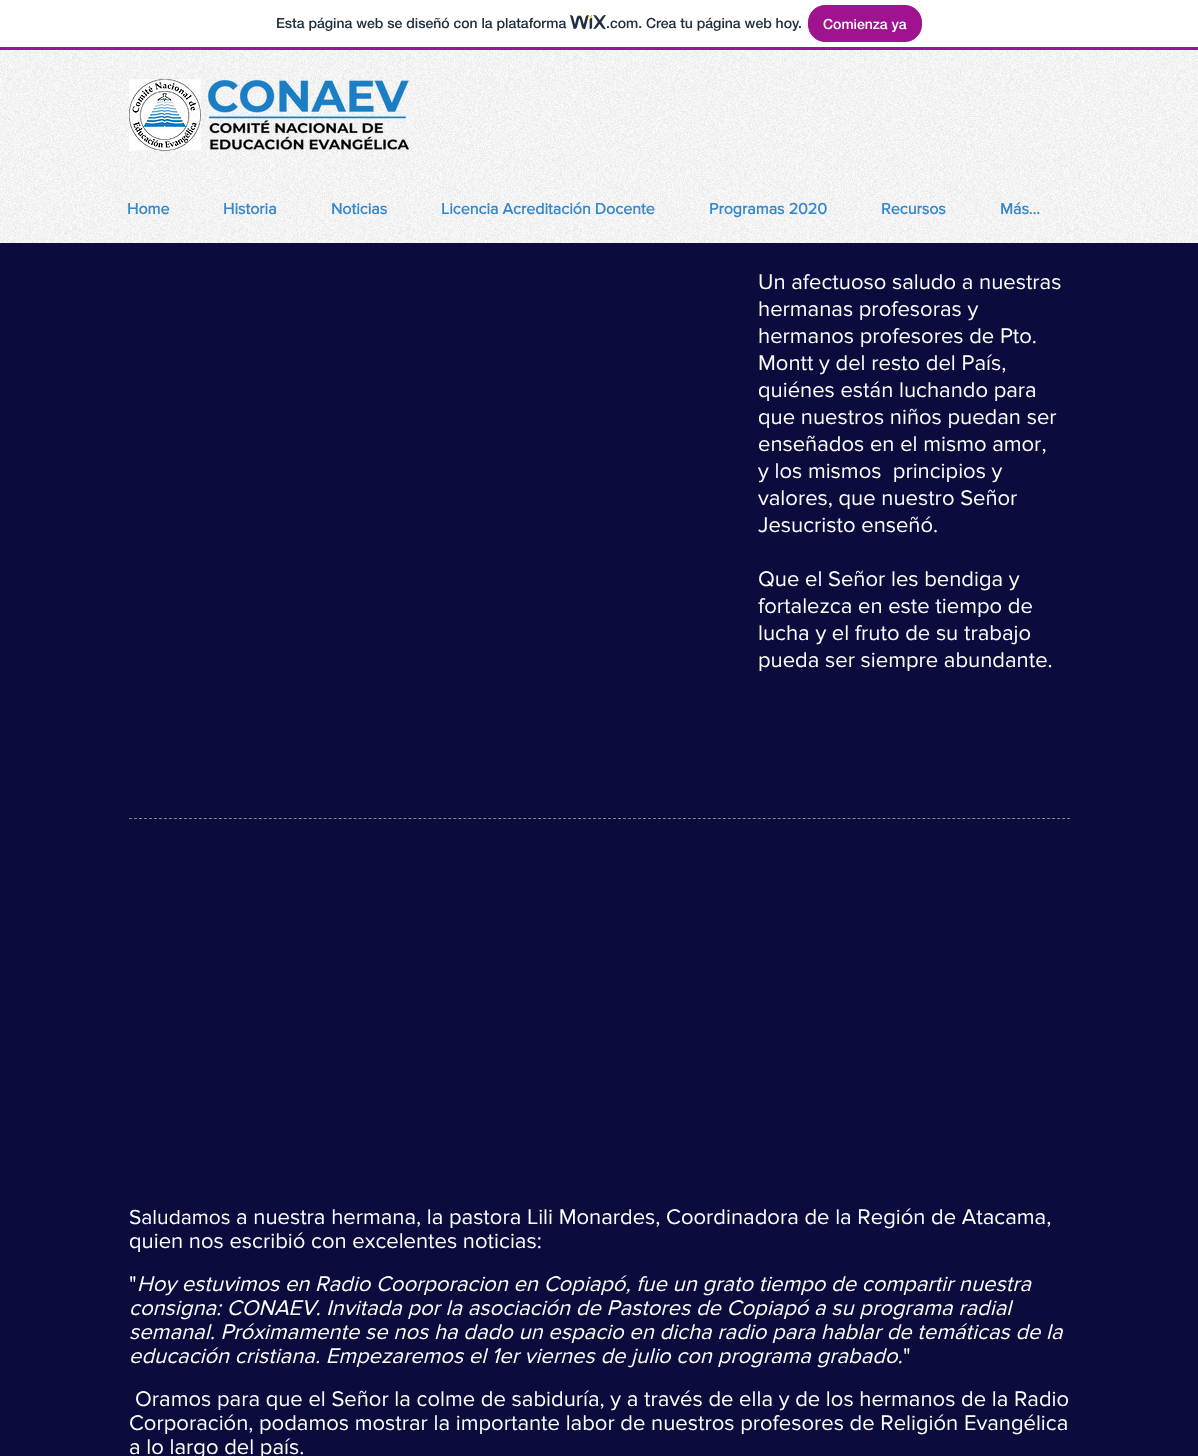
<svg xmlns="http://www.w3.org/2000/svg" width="1198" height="1456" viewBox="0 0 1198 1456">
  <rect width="100%" height="100%" fill="#ffffff"/>
  <rect x="0" y="47" width="1198" height="3" fill="#a0138e"/>
  <text x="276" y="28" font-family="'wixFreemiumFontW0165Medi'" font-size="14" font-weight="500" fill="#20303c">Esta página web se diseñó con la plataforma</text>
  <image x="570" y="15" width="36" height="15" href="img1.png"/>
  <text x="606" y="28" font-family="'wixFreemiumFontW0165Medi'" font-size="14" font-weight="500" fill="#20303c">.com. Crea tu página web hoy.</text>
  <rect x="808.5" y="5.5" width="113" height="36" rx="16.5" fill="#a0138e" stroke="#a0138e"/>
  <text x="823" y="29" font-family="'wixFreemiumFontW0165Medi'" font-size="14" font-weight="500" fill="#ffffff">Comienza ya</text>
  <rect x="0" y="50" width="1198" height="193" fill="#fafafa"/>
  <image x="0" y="50" width="1198" height="193" href="img2.png"/>
  <image x="129" y="78" width="280" height="73" href="img3.png"/>
  <text x="127" y="214" font-family="'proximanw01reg'" font-size="16" font-weight="bold" fill="#3588cc">Home</text>
  <text x="223" y="214" font-family="'proximanw01reg'" font-size="16" font-weight="bold" fill="#3588cc">Historia</text>
  <text x="331" y="214" font-family="'proximanw01reg'" font-size="16" font-weight="bold" fill="#3588cc">Noticias</text>
  <text x="441" y="214" font-family="'proximanw01reg'" font-size="16" font-weight="bold" fill="#3588cc">Licencia Acreditación Docente</text>
  <text x="709" y="214" font-family="'proximanw01reg'" font-size="16" font-weight="bold" fill="#3588cc">Programas 2020</text>
  <text x="881" y="214" font-family="'proximanw01reg'" font-size="16" font-weight="bold" fill="#3588cc">Recursos</text>
  <text x="1000" y="214" font-family="'proximanw01reg'" font-size="16" font-weight="bold" fill="#3588cc">Más...</text>
  <rect x="0" y="243" width="1198" height="1213" fill="#0c0b3e"/>
  <text x="758" y="289" font-family="'proximanw01reg'" font-size="22" fill="#ffffff">Un afectuoso saludo a nuestras</text>
  <text x="758" y="316" font-family="'proximanw01reg'" font-size="22" fill="#ffffff">hermanas profesoras y</text>
  <text x="758" y="343" font-family="'proximanw01reg'" font-size="22" fill="#ffffff">hermanos profesores de Pto.</text>
  <text x="758" y="370" font-family="'proximanw01reg'" font-size="22" fill="#ffffff">Montt y del resto del País,</text>
  <text x="758" y="397" font-family="'proximanw01reg'" font-size="22" fill="#ffffff">quiénes están luchando para</text>
  <text x="758" y="424" font-family="'proximanw01reg'" font-size="22" fill="#ffffff">que nuestros niños puedan ser</text>
  <text x="758" y="451" font-family="'proximanw01reg'" font-size="22" fill="#ffffff">enseñados en el mismo amor,</text>
  <text x="758" y="478" font-family="'proximanw01reg'" font-size="22" fill="#ffffff" xml:space="preserve">y los mismos  principios y</text>
  <text x="758" y="505" font-family="'proximanw01reg'" font-size="22" fill="#ffffff">valores, que nuestro Señor</text>
  <text x="758" y="532" font-family="'proximanw01reg'" font-size="22" fill="#ffffff">Jesucristo enseñó.</text>
  <text x="758" y="586" font-family="'proximanw01reg'" font-size="22" fill="#ffffff">Que el Señor les bendiga y</text>
  <text x="758" y="613" font-family="'proximanw01reg'" font-size="22" fill="#ffffff">fortalezca en este tiempo de</text>
  <text x="758" y="640" font-family="'proximanw01reg'" font-size="22" fill="#ffffff">lucha y el fruto de su trabajo</text>
  <text x="758" y="667" font-family="'proximanw01reg'" font-size="22" fill="#ffffff">pueda ser siempre abundante.</text>
  <path d="M129 817.5H1071" fill="none" stroke="#080728" stroke-dasharray="3 1.99"/>
  <path d="M129 818.5H1071" fill="none" stroke="#86859f" stroke-dasharray="3 1.99"/>
  <text x="129" y="1224" font-family="'proximanw01reg'" font-size="21" fill="#ffffff">Saludamos</text>
  <text x="236" y="1224" font-family="'proximanw01reg'" font-size="22" fill="#ffffff">a nuestra hermana, la pastora Lili Monardes, Coordinadora de la Región de Atacama,</text>
  <text x="129" y="1248" font-family="'proximanw01reg'" font-size="22" fill="#ffffff">quien nos escribió con excelentes noticias:</text>
  <text x="129" y="1291" font-family="'proximanw01reg'" font-size="22" fill="#ffffff">"</text>
  <text x="137" y="1291" font-family="'proximanw01reg'" font-size="22" font-style="italic" fill="#ffffff">Hoy estuvimos en Radio Coorporacion en Copiapó, fue un grato tiempo de compartir nuestra</text>
  <text x="129" y="1315" font-family="'proximanw01reg'" font-size="22" font-style="italic" fill="#ffffff">consigna: CONAEV. Invitada por la asociación de Pastores de Copiapó a su programa radial</text>
  <text x="129" y="1339" font-family="'proximanw01reg'" font-size="22" font-style="italic" fill="#ffffff">semanal. Próximamente se nos ha dado un espacio en dicha radio para hablar de temáticas de la</text>
  <text x="129" y="1363" font-family="'proximanw01reg'" font-size="22" font-style="italic" fill="#ffffff">educación cristiana. Empezaremos el 1er viernes de julio con programa grabado.</text>
  <text x="903" y="1363" font-family="'proximanw01reg'" font-size="22" fill="#ffffff">"</text>
  <text x="135" y="1406" font-family="'proximanw01reg'" font-size="22" fill="#ffffff">Oramos para que el Señor la colme de sabiduría, y a través de ella y de los hermanos de la Radio</text>
  <text x="129" y="1430" font-family="'proximanw01reg'" font-size="22" fill="#ffffff">Corporación, podamos mostrar la importante labor de nuestros profesores de Religión Evangélica</text>
  <text x="129" y="1454" font-family="'proximanw01reg'" font-size="22" fill="#ffffff">a lo largo del país.</text>
</svg>
